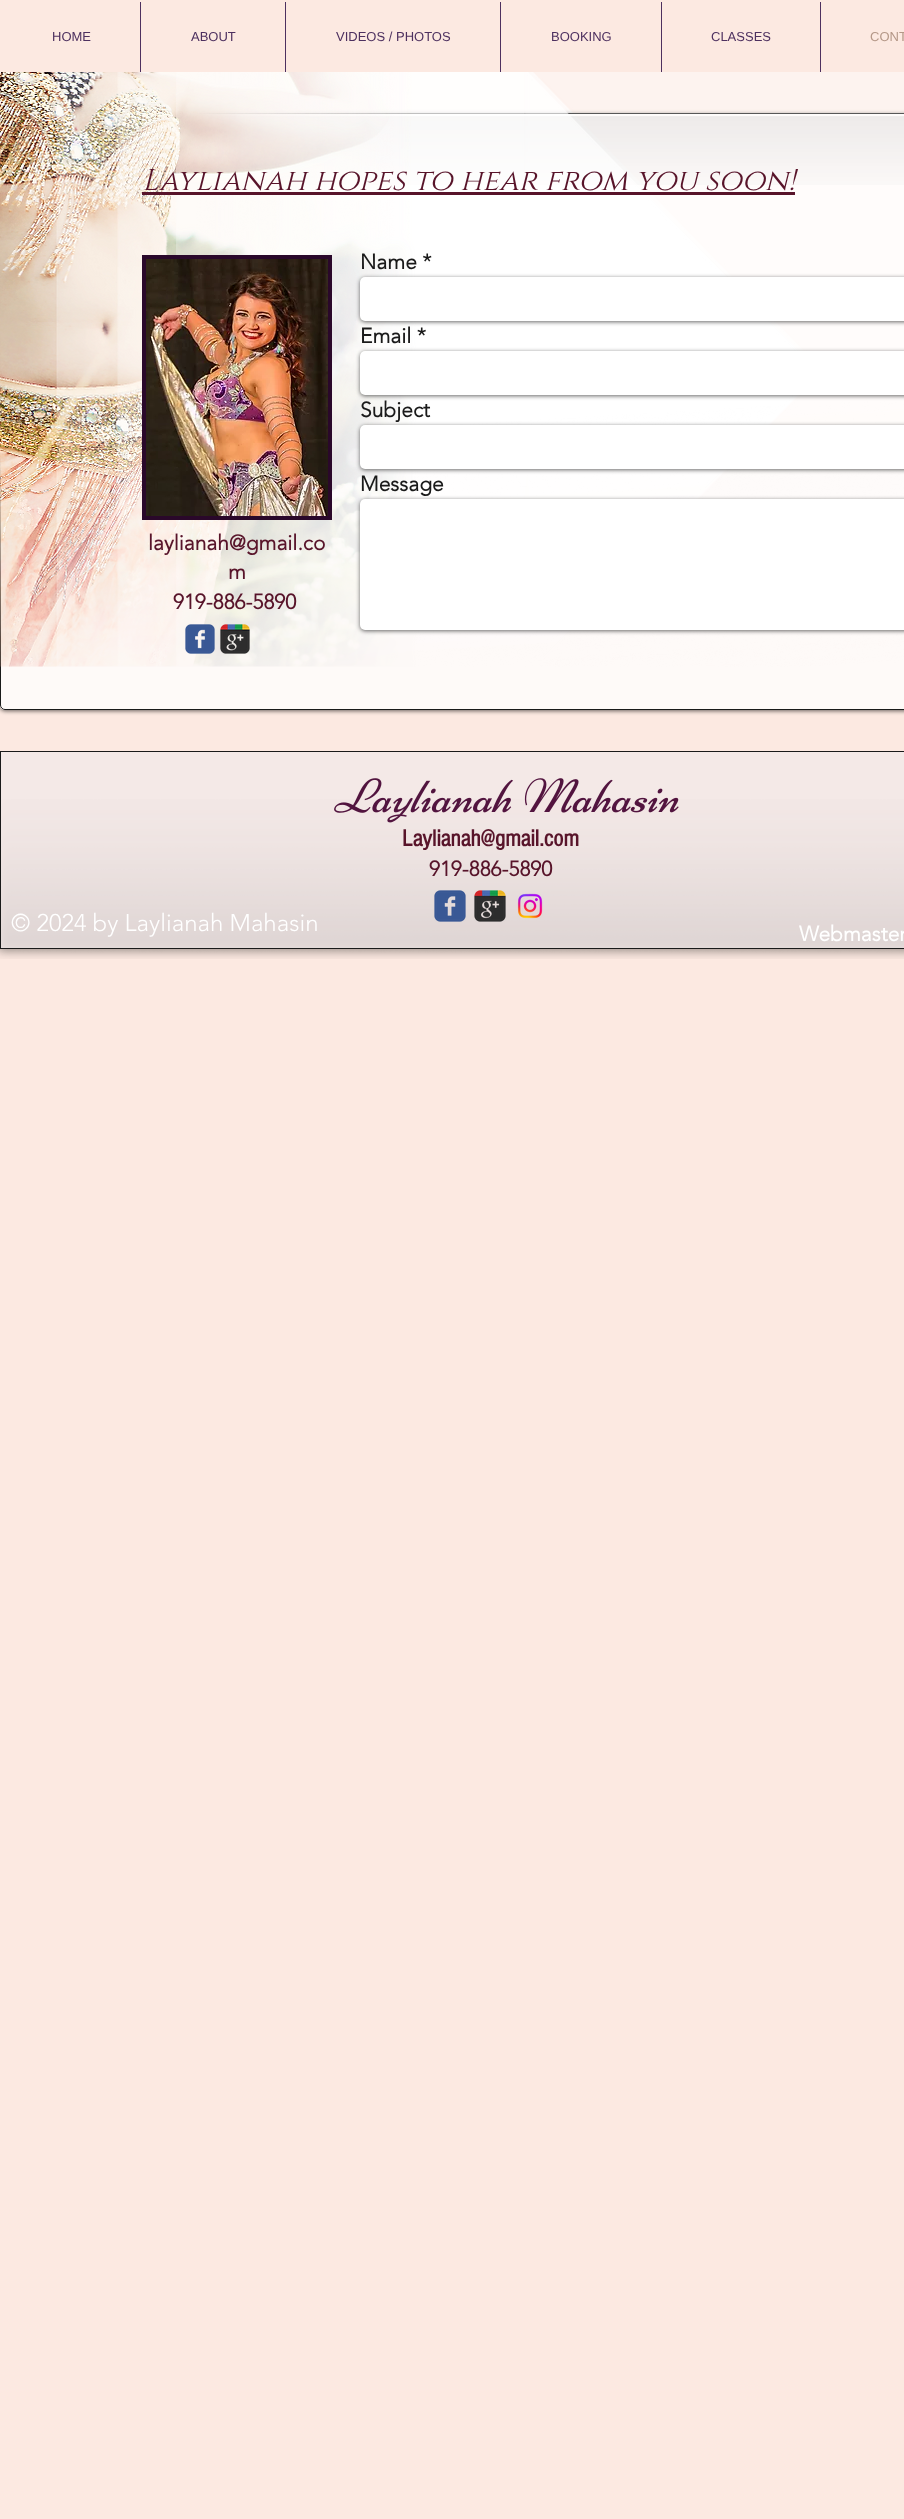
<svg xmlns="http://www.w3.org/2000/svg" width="904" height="2519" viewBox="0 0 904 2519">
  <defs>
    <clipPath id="clip1"><path d="M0 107H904V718H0ZM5 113H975C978 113 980 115 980 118V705C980 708 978 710 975 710H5C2 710 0 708 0 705V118C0 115 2 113 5 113Z" clip-rule="evenodd"/></clipPath>
    <filter id="blur1" x="-50%" y="-200%" width="200%" height="500%"><feGaussianBlur stdDeviation="2"/></filter>
  </defs>
  <rect width="100%" height="100%" fill="#fce9e1"/>
  <text x="52" y="41" font-family="Liberation Sans" font-size="13" fill="#4d305f">HOME</text>
  <rect x="140" y="2" width="1" height="70" fill="#4d305f"/>
  <text x="191" y="41" font-family="Liberation Sans" font-size="13" fill="#4d305f">ABOUT</text>
  <rect x="285" y="2" width="1" height="70" fill="#4d305f"/>
  <text x="336" y="41" font-family="Liberation Sans" font-size="13" fill="#4d305f">VIDEOS / PHOTOS</text>
  <rect x="500" y="2" width="1" height="70" fill="#4d305f"/>
  <text x="551" y="41" font-family="Liberation Sans" font-size="13" fill="#4d305f">BOOKING</text>
  <rect x="661" y="2" width="1" height="70" fill="#4d305f"/>
  <text x="711" y="41" font-family="Liberation Sans" font-size="13" fill="#4d305f">CLASSES</text>
  <rect x="820" y="2" width="1" height="70" fill="#4d305f"/>
  <text x="870" y="41" font-family="Liberation Sans" font-size="13" fill="#b49787">CONT</text>
  <image x="1" y="72" width="903" height="594" href="img1.png"/>
  <g clip-path="url(#clip1)">
    <rect x="0" y="114" width="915" height="597" rx="5" fill="#000000" fill-opacity="0.6" filter="url(#blur1)"/>
  </g>
  <rect x="0" y="113" width="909" height="597" rx="5" fill="#ffffff" fill-opacity="0.75"/>
  <image x="199" y="116" width="705" height="69" href="img2.png"/>
  <rect x="0.5" y="113.5" width="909" height="596" rx="4.5" fill="none" stroke="#1a1a1a"/>
  <image x="0" y="72" width="904" height="595" href="img3.png"/>
  <text x="142" y="190" font-family="Cinzel" font-size="30" font-style="italic" fill="#58142a">Laylianah hopes to hear from you soon!</text>
  <rect x="142" y="192" width="653" height="3" fill="#58142a"/>
  <rect x="142" y="255" width="190" height="265" fill="#2a082a"/>
  <image x="146" y="259" width="182" height="257" href="img4.png"/>
  <text x="360" y="269" font-family="'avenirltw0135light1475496'" font-size="21" font-weight="bold" fill="#1a1a1a">Name *</text>
  <rect x="360" y="278" width="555" height="44" rx="5" fill="#000000" fill-opacity="0.6" filter="url(#blur1)"/>
  <rect x="360" y="277" width="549" height="44" rx="5" fill="#ffffff"/>
  <text x="360" y="343" font-family="'avenirltw0135light1475496'" font-size="21" font-weight="bold" fill="#1a1a1a">Email *</text>
  <rect x="360" y="352" width="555" height="44" rx="5" fill="#000000" fill-opacity="0.6" filter="url(#blur1)"/>
  <rect x="360" y="351" width="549" height="44" rx="5" fill="#ffffff"/>
  <text x="360" y="417" font-family="'avenirltw0135light1475496'" font-size="21" font-weight="bold" fill="#1a1a1a">Subject</text>
  <rect x="360" y="426" width="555" height="44" rx="5" fill="#000000" fill-opacity="0.6" filter="url(#blur1)"/>
  <rect x="360" y="425" width="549" height="44" rx="5" fill="#ffffff"/>
  <text x="360" y="491" font-family="'avenirltw0135light1475496'" font-size="21" font-weight="bold" fill="#1a1a1a">Message</text>
  <rect x="360" y="500" width="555" height="131" rx="5" fill="#000000" fill-opacity="0.6" filter="url(#blur1)"/>
  <rect x="360" y="499" width="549" height="131" rx="5" fill="#ffffff"/>
  <text x="148" y="550" font-family="'avenirltw0135light1475496'" font-size="21" font-weight="bold" fill="#58142a">laylianah@gmail.co</text>
  <text x="228" y="579" font-family="'avenirltw0135light1475496'" font-size="21" font-weight="bold" fill="#58142a">m</text>
  <text x="173" y="609" font-family="'avenirltw0135light1475496'" font-size="21" font-weight="bold" fill="#58142a">919-886-5890</text>
  <image x="185" y="624" width="30" height="30" href="img5.png"/>
  <image x="220" y="624" width="30" height="30" href="img6.png"/>
  <rect x="1" y="752" width="903" height="196" fill="#f4e9e7"/>
  <image x="0" y="799" width="35" height="160" href="img7.png"/>
  <image x="35" y="799" width="869" height="160" href="img8.png"/>
  <rect x="0.5" y="751.5" width="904" height="197" fill="none" stroke="#1a1a1a"/>
  <image x="334" y="778" width="345" height="45" href="img9.png"/>
  <text x="402" y="846" font-family="'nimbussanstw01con'" font-size="24" font-weight="bold" fill="#58142a">Laylianah@gmail.com</text>
  <text x="429" y="876" font-family="'avenirltw0135light1475496'" font-size="21" font-weight="bold" fill="#58142a">919-886-5890</text>
  <image x="434" y="890" width="32" height="32" href="img10.png"/>
  <image x="474" y="890" width="32" height="32" href="img11.png"/>
  <image x="517" y="893" width="26" height="26" href="img12.png"/>
  <text x="11" y="931" font-family="'avenirltw0135light1475496'" font-size="24" font-weight="300" fill="#ffffff">© 2024 by Laylianah Mahasin</text>
  <text x="799" y="941" font-family="'avenirltw0135light1475496'" font-size="21" font-weight="bold" fill="#ffffff">Webmaster</text>
</svg>
